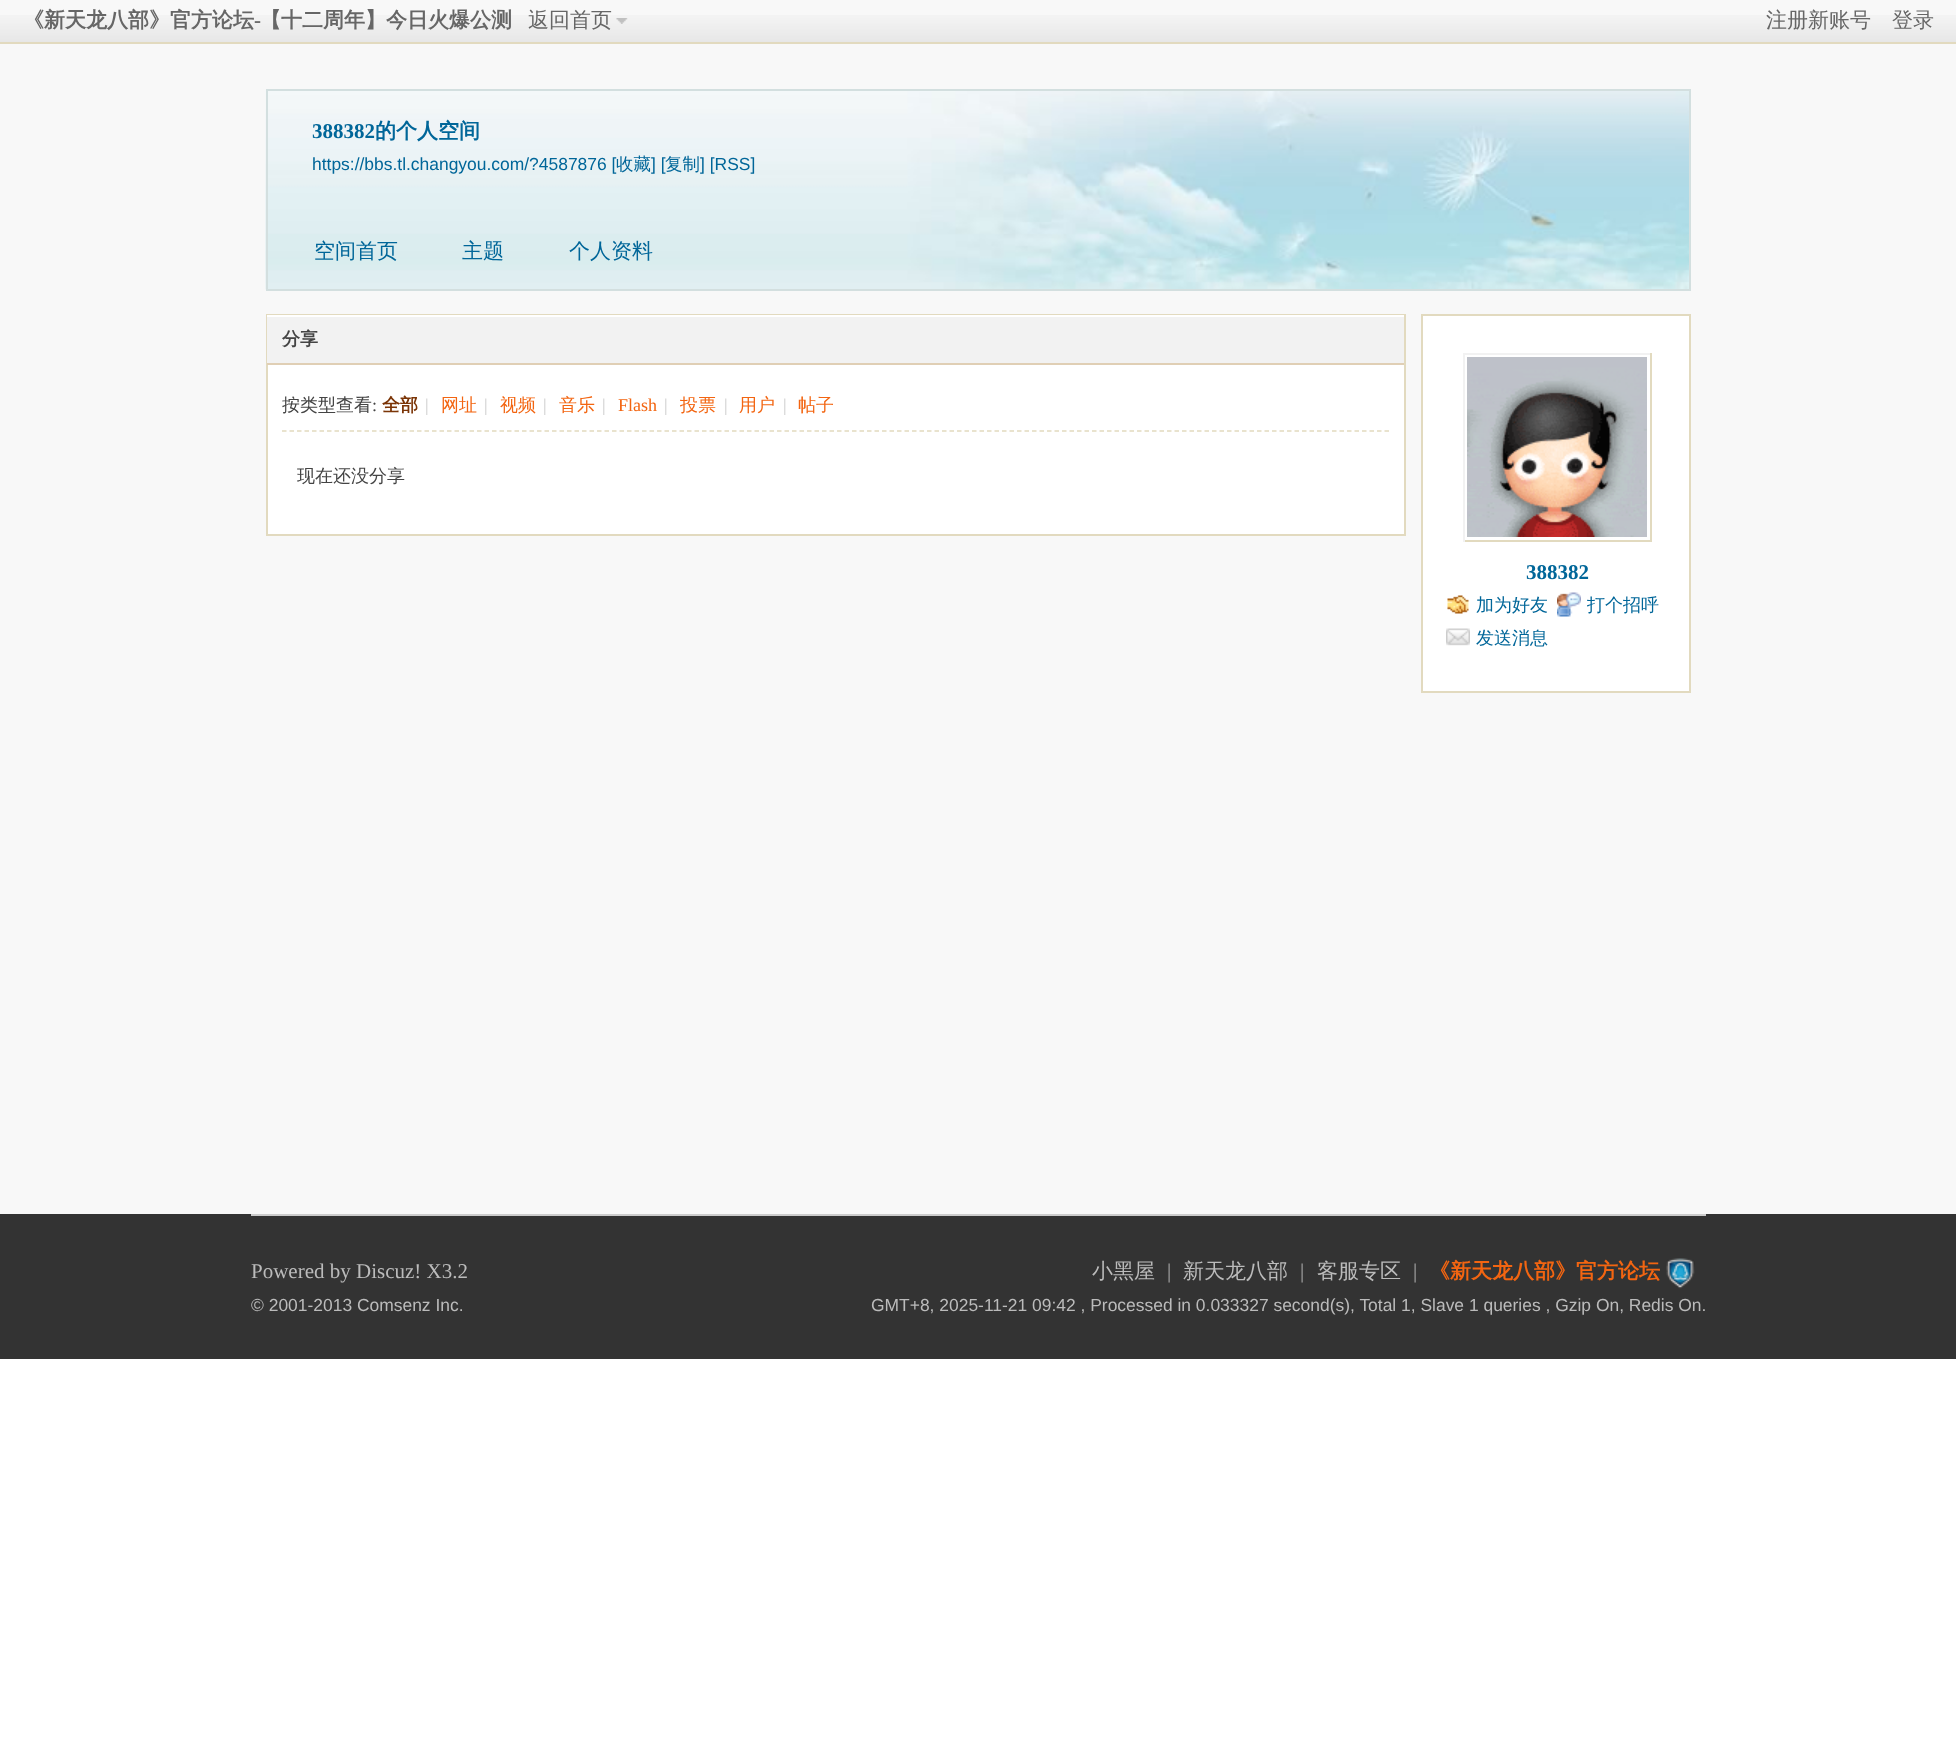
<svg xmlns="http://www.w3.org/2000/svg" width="1956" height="1746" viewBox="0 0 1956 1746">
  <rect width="100%" height="100%" fill="#ffffff"/>
  <rect x="0" y="0" width="1956" height="1214" fill="#f8f8f8"/>
  <image x="0" y="15" width="1956" height="27" href="img1.png"/>
  <rect x="0" y="42" width="1956" height="2" fill="#e2dabf"/>
  <text x="23" y="27" font-family="WenQuanYi Zen Hei" font-size="21" font-weight="bold" fill="#666666">《新天龙八部》官方论坛</text>
  <text x="254" y="27" font-family="Liberation Serif" font-size="21" font-weight="bold" fill="#666666">-</text>
  <text x="260" y="27" font-family="WenQuanYi Zen Hei" font-size="21" font-weight="bold" fill="#666666">【十二周年】今日火爆公测</text>
  <image x="616" y="18" width="12" height="6" href="img2.png"/>
  <text x="528" y="27" font-family="WenQuanYi Zen Hei" font-size="21" font-weight="500" fill="#666666">返回首页</text>
  <text x="1766" y="27" font-family="WenQuanYi Zen Hei" font-size="21" font-weight="500" fill="#666666">注册新账号</text>
  <text x="1892" y="27" font-family="WenQuanYi Zen Hei" font-size="21" font-weight="500" fill="#666666">登录</text>
  <image x="265" y="90" width="1424" height="200" href="img3.png"/>
  <rect x="267" y="90" width="1423" height="200" fill="none" stroke="#d3dfdf" stroke-width="2"/>
  <text x="312" y="138" font-family="Liberation Serif" font-size="21" font-weight="bold" fill="#006699">388382</text>
  <text x="375" y="138" font-family="WenQuanYi Zen Hei" font-size="21" font-weight="bold" fill="#006699">的个人空间</text>
  <text x="312" y="170" font-family="Liberation Sans" font-size="17.45" fill="#006699">https://bbs.tl.changyou.com/?4587876 [</text>
  <text x="616" y="170" font-family="WenQuanYi Zen Hei" font-size="17.45" font-weight="500" fill="#006699">收藏</text>
  <text x="651" y="170" font-family="Liberation Sans" font-size="17.45" fill="#006699">] [</text>
  <text x="665" y="170" font-family="WenQuanYi Zen Hei" font-size="17.45" font-weight="500" fill="#006699">复制</text>
  <text x="700" y="170" font-family="Liberation Sans" font-size="17.45" fill="#006699">] [RSS]</text>
  <text x="314" y="258" font-family="WenQuanYi Zen Hei" font-size="21" font-weight="500" fill="#006699">空间首页</text>
  <text x="462" y="258" font-family="WenQuanYi Zen Hei" font-size="21" font-weight="500" fill="#006699">主题</text>
  <text x="569" y="258" font-family="WenQuanYi Zen Hei" font-size="21" font-weight="500" fill="#006699">个人资料</text>
  <rect x="268" y="365" width="1136" height="169" fill="#ffffff"/>
  <rect x="267" y="315" width="1138" height="220" fill="none" stroke="#e2dabf" stroke-width="2"/>
  <rect x="267" y="317" width="1137" height="46" fill="#f2f2f2"/>
  <rect x="267" y="315" width="1137" height="2" fill="#ffffff"/>
  <rect x="267" y="363" width="1137" height="2" fill="#e0cfb5"/>
  <text x="282" y="345" font-family="WenQuanYi Zen Hei" font-size="18" font-weight="bold" fill="#444444">分享</text>
  <path d="M282 431H1389" fill="none" stroke="#e2dabf" stroke-width="1.5" stroke-dasharray="4.5 3"/>
  <text x="282" y="411" font-family="WenQuanYi Zen Hei" font-size="18" font-weight="500" fill="#444444">按类型查看</text>
  <text x="372" y="411" font-family="Liberation Serif" font-size="18" fill="#444444">:</text>
  <text x="382" y="411" font-family="WenQuanYi Zen Hei" font-size="18" font-weight="bold" fill="#7b3507">全部</text>
  <text x="425" y="411" font-family="Liberation Serif" font-size="18" fill="#cccccc">|</text>
  <text x="441" y="411" font-family="WenQuanYi Zen Hei" font-size="18" font-weight="500" fill="#f36511">网址</text>
  <text x="484" y="411" font-family="Liberation Serif" font-size="18" fill="#cccccc">|</text>
  <text x="500" y="411" font-family="WenQuanYi Zen Hei" font-size="18" font-weight="500" fill="#f36511">视频</text>
  <text x="543" y="411" font-family="Liberation Serif" font-size="18" fill="#cccccc">|</text>
  <text x="559" y="411" font-family="WenQuanYi Zen Hei" font-size="18" font-weight="500" fill="#f36511">音乐</text>
  <text x="602" y="411" font-family="Liberation Serif" font-size="18" fill="#cccccc">|</text>
  <text x="618" y="411" font-family="Liberation Serif" font-size="18" fill="#f36511">Flash</text>
  <text x="664" y="411" font-family="Liberation Serif" font-size="18" fill="#cccccc">|</text>
  <text x="680" y="411" font-family="WenQuanYi Zen Hei" font-size="18" font-weight="500" fill="#f36511">投票</text>
  <text x="724" y="411" font-family="Liberation Serif" font-size="18" fill="#cccccc">|</text>
  <text x="739" y="411" font-family="WenQuanYi Zen Hei" font-size="18" font-weight="500" fill="#f36511">用户</text>
  <text x="783" y="411" font-family="Liberation Serif" font-size="18" fill="#cccccc">|</text>
  <text x="798" y="411" font-family="WenQuanYi Zen Hei" font-size="18" font-weight="500" fill="#f36511">帖子</text>
  <text x="297" y="482" font-family="WenQuanYi Zen Hei" font-size="18" font-weight="500" fill="#444444">现在还没分享</text>
  <rect x="1422" y="315" width="268" height="377" fill="#ffffff" stroke="#e2dabf" stroke-width="2"/>
  <rect x="1463" y="353" width="189" height="2" fill="#f2f2f2"/>
  <rect x="1650" y="353" width="2" height="189" fill="#e2dabf"/>
  <rect x="1463" y="540" width="189" height="2" fill="#e2dabf"/>
  <rect x="1463" y="353" width="2" height="189" fill="#f2f2f2"/>
  <image x="1467" y="357" width="180" height="180" href="img4.png"/>
  <text x="1526" y="579" font-family="Liberation Serif" font-size="21" font-weight="bold" fill="#006699">388382</text>
  <image x="1447" y="595" width="22" height="19" href="img5.png"/>
  <text x="1476" y="611" font-family="WenQuanYi Zen Hei" font-size="18" font-weight="500" fill="#006699">加为好友</text>
  <image x="1557" y="592" width="24" height="25" href="img6.png"/>
  <text x="1587" y="611" font-family="WenQuanYi Zen Hei" font-size="18" font-weight="500" fill="#006699">打个招呼</text>
  <image x="1446" y="628" width="24" height="18" href="img7.png"/>
  <text x="1476" y="644" font-family="WenQuanYi Zen Hei" font-size="18" font-weight="500" fill="#006699">发送消息</text>
  <rect x="0" y="1214" width="1956" height="145" fill="#333333"/>
  <rect x="251" y="1214" width="1455" height="2" fill="#cccccc"/>
  <text x="251" y="1278" font-family="Liberation Serif" font-size="21" fill="#bbbbbb">Powered by Discuz! X3.2</text>
  <text x="251" y="1311" font-family="Liberation Sans" font-size="17.45" fill="#bbbbbb">© 2001-2013 Comsenz Inc.</text>
  <text x="1092" y="1278" font-family="WenQuanYi Zen Hei" font-size="21" font-weight="500" fill="#bbbbbb">小黑屋</text>
  <text x="1167" y="1278" font-family="Liberation Serif" font-size="21" fill="#aaaaaa">|</text>
  <text x="1183" y="1278" font-family="WenQuanYi Zen Hei" font-size="21" font-weight="500" fill="#bbbbbb">新天龙八部</text>
  <text x="1300" y="1278" font-family="Liberation Serif" font-size="21" fill="#aaaaaa">|</text>
  <text x="1317" y="1278" font-family="WenQuanYi Zen Hei" font-size="21" font-weight="500" fill="#bbbbbb">客服专区</text>
  <text x="1413" y="1278" font-family="Liberation Serif" font-size="21" fill="#aaaaaa">|</text>
  <text x="1429" y="1278" font-family="WenQuanYi Zen Hei" font-size="21" font-weight="bold" fill="#f36511">《新天龙八部》官方论坛</text>
  <image x="1666" y="1258" width="29" height="31" href="img8.png"/>
  <text x="871" y="1311" font-family="Liberation Sans" font-size="17.45" fill="#bbbbbb">GMT+8, 2025-11-21 09:42 , Processed in 0.033327 second(s), Total 1, Slave 1 queries , Gzip On, Redis On.</text>
</svg>
